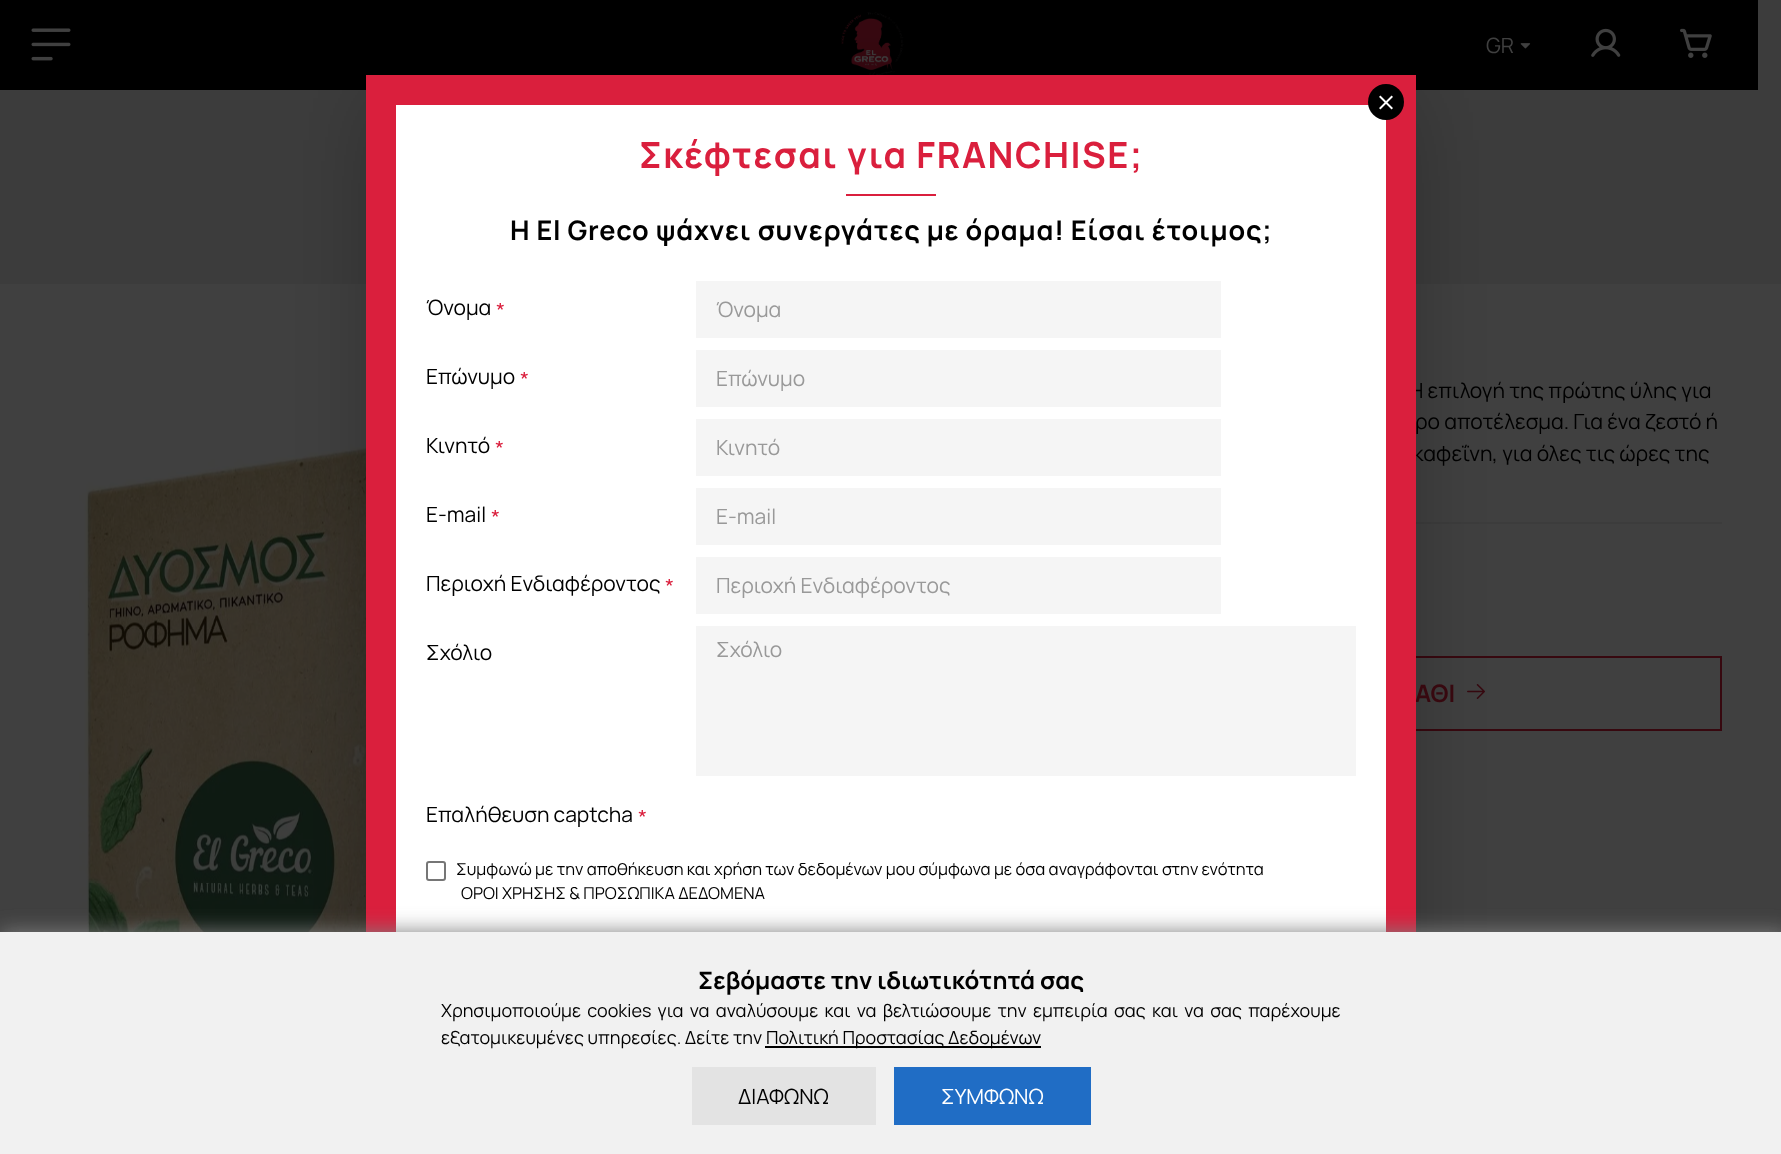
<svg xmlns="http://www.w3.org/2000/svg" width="1781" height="1154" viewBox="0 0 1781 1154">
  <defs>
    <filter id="blur1" x="-50%" y="-200%" width="200%" height="500%"><feGaussianBlur stdDeviation="45"/></filter>
    <filter id="blur2" x="-50%" y="-200%" width="200%" height="500%"><feGaussianBlur stdDeviation="10.5"/></filter>
  </defs>
  <rect width="100%" height="100%" fill="#3c3c3c"/>
  <rect x="0" y="0" width="1758" height="90" fill="#000000"/>
  <image x="841" y="12" width="63" height="63" href="img3.png"/>
  <image x="1520" y="43" width="11" height="6" href="img4.png"/>
  <rect x="0" y="284" width="1781" height="648" fill="#404040"/>
  <image x="76" y="435" width="290" height="497" href="img7.png"/>
  <rect x="1416" y="522" width="306" height="2" fill="#3c3c3c"/>
  <rect x="952" y="657" width="769" height="73" fill="none" stroke="#37080f" stroke-width="2"/>
  <image x="1467" y="684" width="18" height="15" href="img8.png"/>
  <rect x="381" y="98" width="1020" height="975" fill="#000000" fill-opacity="0.3" filter="url(#blur1)"/>
  <text x="1409" y="398" font-family="Manrope" font-size="21" fill="#000000">Η επιλογή της πρώτης ύλης για</text>
  <text x="1413" y="461" font-family="Manrope" font-size="21" fill="#000000">καφεΐνη, για όλες τις ώρες της</text>
  <text x="1415" y="702" font-family="Manrope" font-size="24" font-weight="bold" fill="#37080f">ΑΘΙ</text>
  <rect x="366" y="75" width="1050" height="857" fill="#da1f3d"/>
  <rect x="396" y="105" width="990" height="827" fill="#ffffff"/>
  <circle cx="1386" cy="102" r="18" fill="#000000"/>
  <image x="1379" y="95" width="14" height="15" href="img1.png"/>
  <text x="639" y="168" font-family="Manrope" font-size="36" font-weight="bold" letter-spacing="1.5" fill="#da1f3d">Σκέφτεσαι για FRANCHISE;</text>
  <rect x="846" y="194" width="90" height="2" fill="#da1f3d"/>
  <text x="510" y="240" font-family="Manrope" font-size="27" font-weight="bold" letter-spacing="0.75" fill="#000000">H El Greco ψάχνει συνεργάτες με όραμα! Είσαι έτοιμος;</text>
  <text x="426" y="315" font-family="Manrope" font-size="21" fill="#000000">Όνομα</text>
  <text x="496" y="318" font-family="Manrope" font-size="21" fill="#da1f3d">*</text>
  <rect x="696" y="281" width="525" height="57" fill="#f5f5f5"/>
  <text x="716" y="317" font-family="Manrope" font-size="21" fill="#999999">Όνομα</text>
  <text x="426" y="384" font-family="Manrope" font-size="21" fill="#000000">Επώνυμο</text>
  <text x="520" y="387" font-family="Manrope" font-size="21" fill="#da1f3d">*</text>
  <rect x="696" y="350" width="525" height="57" fill="#f5f5f5"/>
  <text x="716" y="386" font-family="Manrope" font-size="21" fill="#999999">Επώνυμο</text>
  <text x="426" y="453" font-family="Manrope" font-size="21" fill="#000000">Κινητό</text>
  <text x="495" y="456" font-family="Manrope" font-size="21" fill="#da1f3d">*</text>
  <rect x="696" y="419" width="525" height="57" fill="#f5f5f5"/>
  <text x="716" y="455" font-family="Manrope" font-size="21" fill="#999999">Κινητό</text>
  <text x="426" y="522" font-family="Manrope" font-size="21" fill="#000000">E-mail</text>
  <text x="491" y="525" font-family="Manrope" font-size="21" fill="#da1f3d">*</text>
  <rect x="696" y="488" width="525" height="57" fill="#f5f5f5"/>
  <text x="716" y="524" font-family="Manrope" font-size="21" fill="#999999">E-mail</text>
  <text x="426" y="591" font-family="Manrope" font-size="21" fill="#000000">Περιοχή Ενδιαφέροντος</text>
  <text x="665" y="594" font-family="Manrope" font-size="21" fill="#da1f3d">*</text>
  <rect x="696" y="557" width="525" height="57" fill="#f5f5f5"/>
  <text x="716" y="593" font-family="Manrope" font-size="21" fill="#999999">Περιοχή Ενδιαφέροντος</text>
  <text x="426" y="660" font-family="Manrope" font-size="21" fill="#000000">Σχόλιο</text>
  <rect x="696" y="626" width="660" height="150" fill="#f5f5f5"/>
  <text x="716" y="657" font-family="Manrope" font-size="21" fill="#999999">Σχόλιο</text>
  <text x="426" y="822" font-family="Manrope" font-size="21" fill="#000000">Επαλήθευση captcha</text>
  <text x="638" y="825" font-family="Manrope" font-size="21" fill="#da1f3d">*</text>
  <rect x="427" y="862" width="18" height="18" rx="2" fill="none" stroke="#767676" stroke-width="2"/>
  <text x="456" y="875" font-family="Manrope" font-size="16.5" fill="#000000">Συμφωνώ με την αποθήκευση και χρήση των δεδομένων μου σύμφωνα με όσα αναγράφονται στην ενότητα</text>
  <text x="461" y="899" font-family="Manrope" font-size="16.5" fill="#000000">ΟΡΟΙ ΧΡΗΣΗΣ &amp; ΠΡΟΣΩΠΙΚΑ ΔΕΔΟΜΕΝΑ</text>
  <image x="31" y="28" width="40" height="33" href="img2.png"/>
  <text x="1486" y="53" font-family="Manrope" font-size="21" fill="#404040">GR</text>
  <image x="1591" y="28" width="30" height="29" href="img5.png"/>
  <image x="1680" y="28" width="32" height="30" href="img6.png"/>
  <text x="1415" y="429" font-family="Manrope" font-size="21" fill="#000000">ρο αποτέλεσμα. Για ένα ζεστό ή</text>
  <rect x="0" y="932" width="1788" height="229" fill="#7f7f7f" filter="url(#blur2)"/>
  <rect x="0" y="932" width="1781" height="222" fill="#f1f1f1"/>
  <text x="698" y="989" font-family="Manrope" font-size="24" font-weight="bold" fill="#000000">Σεβόμαστε την ιδιωτικότητά σας</text>
  <text x="441" y="1017" word-spacing="2.6" font-family="Manrope" font-size="18" fill="#000000">Χρησιμοποιούμε cookies για να αναλύσουμε και να βελτιώσουμε την εμπειρία σας και να σας παρέχουμε</text>
  <text x="441" y="1044" font-family="Manrope" font-size="18" fill="#000000">εξατομικευμένες υπηρεσίες. Δείτε την</text>
  <rect x="765" y="1046" width="276" height="2" fill="#000000"/>
  <text x="766" y="1044" font-family="Manrope" font-size="18" fill="#000000">Πολιτική Προστασίας Δεδομένων</text>
  <rect x="692" y="1067" width="184" height="58" fill="#e3e3e3"/>
  <text x="738" y="1104" font-family="Manrope" font-size="21" fill="#000000">ΔΙΑΦΩΝΩ</text>
  <rect x="894" y="1067" width="197" height="58" fill="#206dc5"/>
  <text x="941" y="1104" font-family="Manrope" font-size="21" fill="#ffffff">ΣΥΜΦΩΝΩ</text>
</svg>
